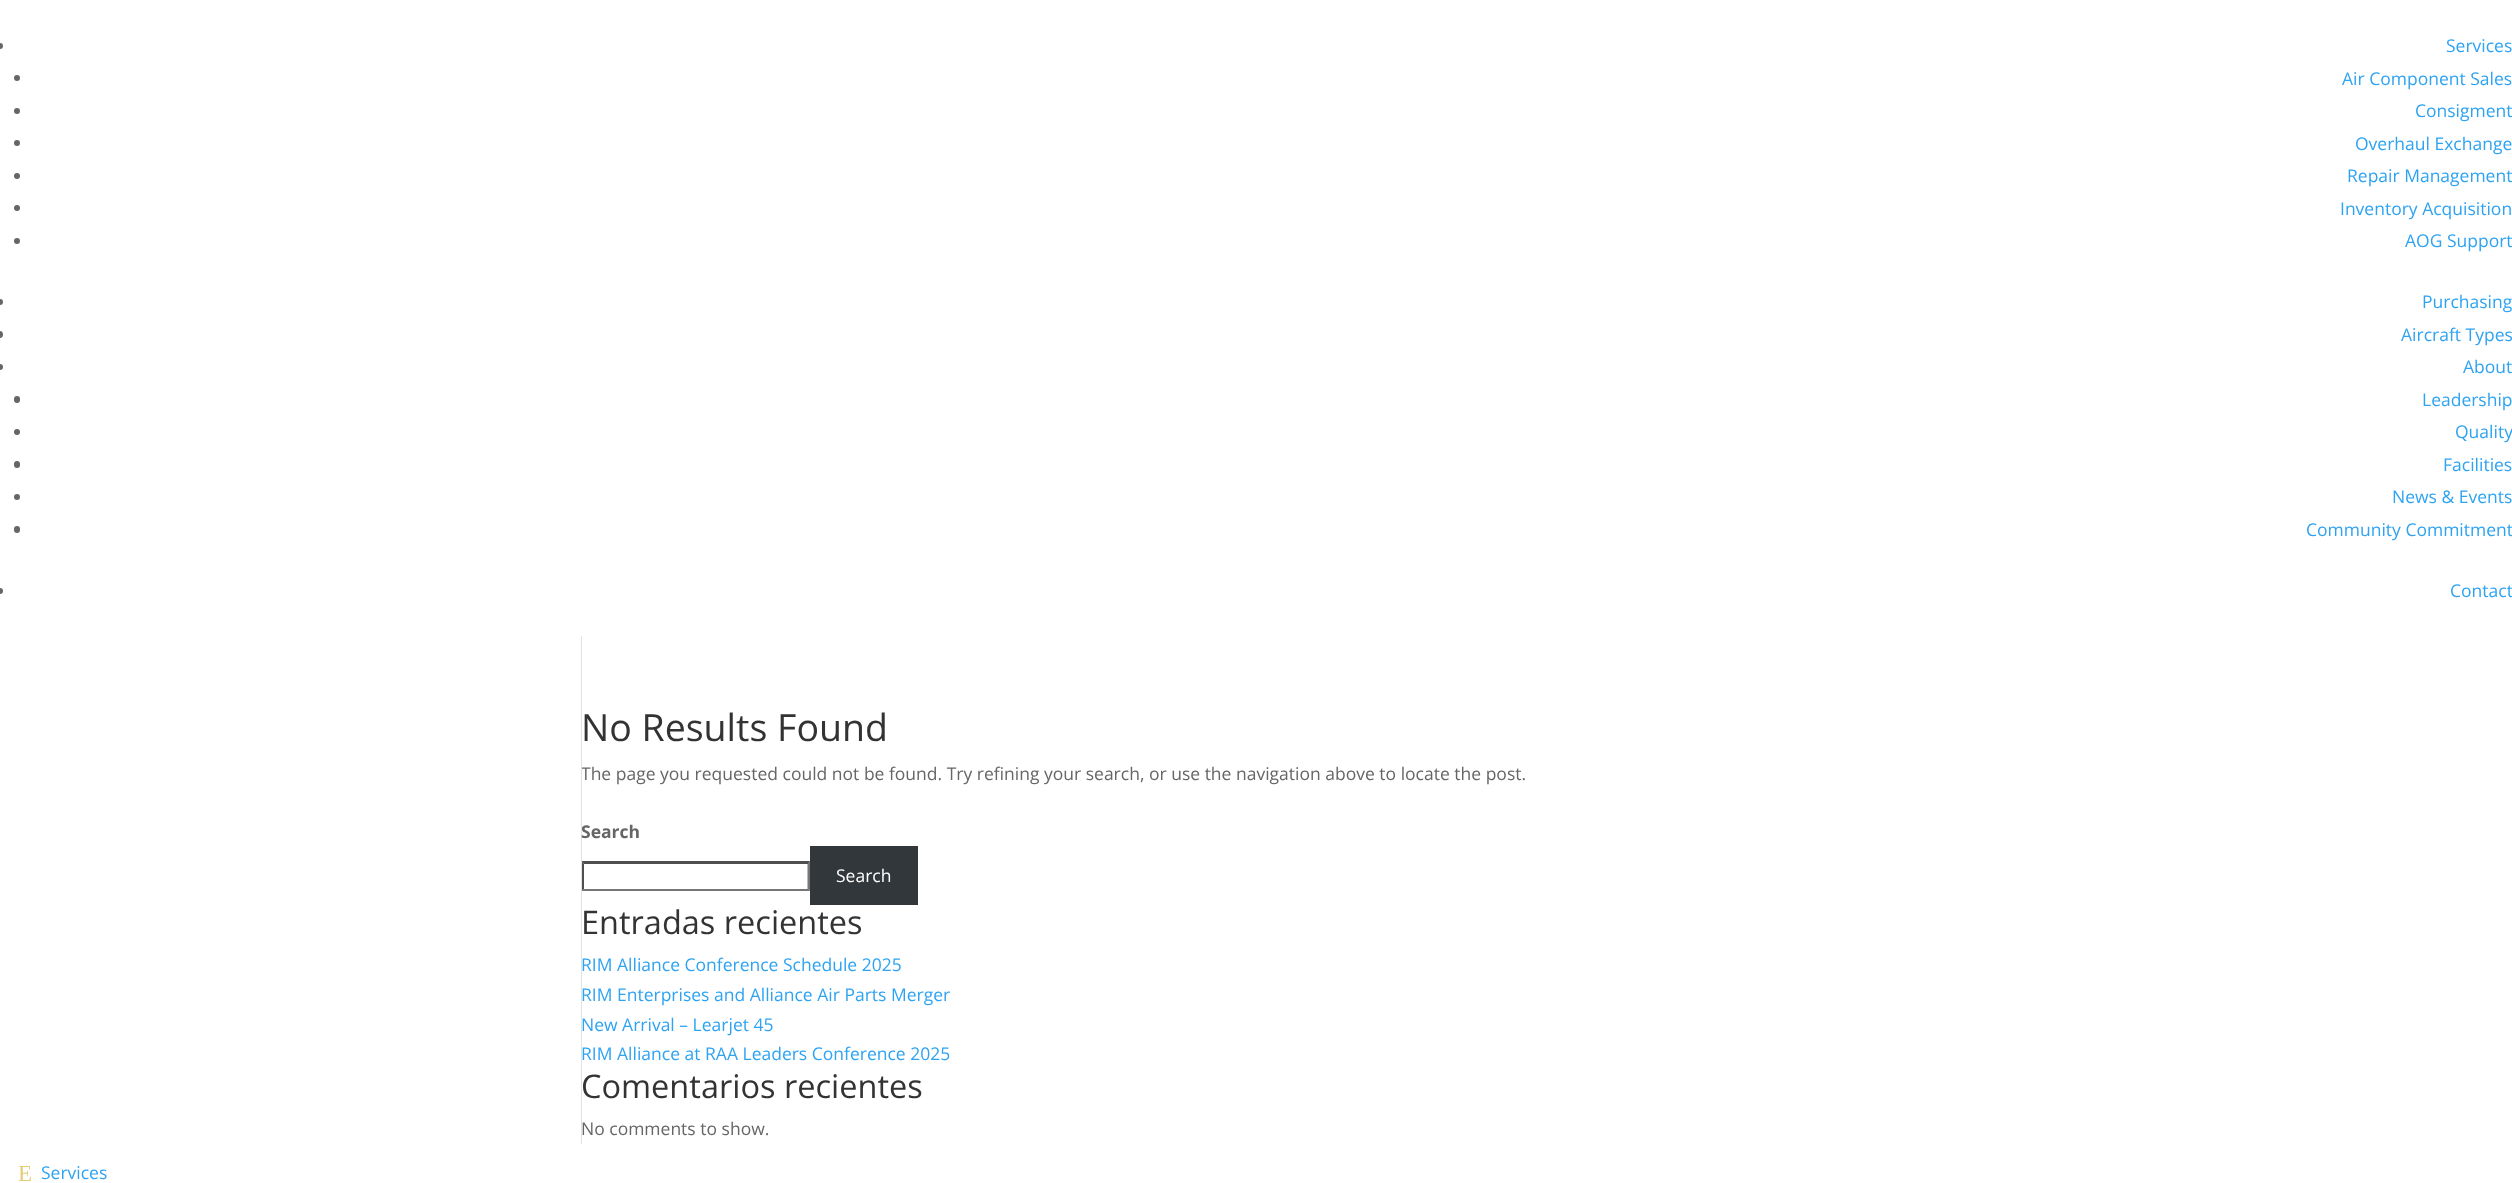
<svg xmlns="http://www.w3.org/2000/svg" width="2512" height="1183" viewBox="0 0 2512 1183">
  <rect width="100%" height="100%" fill="#ffffff"/>
  <circle cx="0" cy="46" r="3" fill="#666666"/>
  <text x="2446" y="52" font-family="Open Sans" font-size="17.5" fill="#2ea3f2">Services</text>
  <circle cx="17" cy="78" r="3" fill="#666666"/>
  <text x="2342" y="85" font-family="Open Sans" font-size="17.5" fill="#2ea3f2">Air Component Sales</text>
  <circle cx="17" cy="111" r="3" fill="#666666"/>
  <text x="2415" y="117" font-family="Open Sans" font-size="17.5" fill="#2ea3f2">Consigment</text>
  <circle cx="17" cy="143" r="3" fill="#666666"/>
  <text x="2355" y="150" font-family="Open Sans" font-size="17.5" fill="#2ea3f2">Overhaul Exchange</text>
  <circle cx="17" cy="176" r="3" fill="#666666"/>
  <text x="2347" y="182" font-family="Open Sans" font-size="17.5" fill="#2ea3f2">Repair Management</text>
  <circle cx="17" cy="208" r="3" fill="#666666"/>
  <text x="2340" y="215" font-family="Open Sans" font-size="17.5" fill="#2ea3f2">Inventory Acquisition</text>
  <circle cx="17" cy="241" r="3" fill="#666666"/>
  <text x="2405" y="247" font-family="Open Sans" font-size="17.5" fill="#2ea3f2">AOG Support</text>
  <circle cx="0" cy="302" r="3" fill="#666666"/>
  <text x="2422" y="308" font-family="Open Sans" font-size="17.5" fill="#2ea3f2">Purchasing</text>
  <circle cx="-0.5" cy="334.5" r="3.5" fill="#666666"/>
  <text x="2401" y="341" font-family="Open Sans" font-size="17.5" fill="#2ea3f2">Aircraft Types</text>
  <circle cx="0" cy="367" r="3" fill="#666666"/>
  <text x="2463" y="373" font-family="Open Sans" font-size="17.5" fill="#2ea3f2">About</text>
  <rect x="14" y="396" width="6" height="7" rx="3" fill="#666666"/>
  <text x="2422" y="406" font-family="Open Sans" font-size="17.5" fill="#2ea3f2">Leadership</text>
  <circle cx="17" cy="432" r="3" fill="#666666"/>
  <text x="2455" y="438" font-family="Open Sans" font-size="17.5" fill="#2ea3f2">Quality</text>
  <rect x="14" y="461" width="6" height="7" rx="3" fill="#666666"/>
  <text x="2443" y="471" font-family="Open Sans" font-size="17.5" fill="#2ea3f2">Facilities</text>
  <circle cx="17" cy="497" r="3" fill="#666666"/>
  <text x="2392" y="503" font-family="Open Sans" font-size="17.5" fill="#2ea3f2">News &amp; Events</text>
  <rect x="14" y="526" width="6" height="7" rx="3" fill="#666666"/>
  <text x="2306" y="536" font-family="Open Sans" font-size="17.5" fill="#2ea3f2">Community Commitment</text>
  <circle cx="0" cy="591" r="3" fill="#666666"/>
  <text x="2450" y="597" font-family="Open Sans" font-size="17.5" fill="#2ea3f2">Contact</text>
  <text x="581" y="780" font-family="Open Sans" font-size="17.5" fill="#666666">The page you requested could not be found. Try refining your search, or use the navigation above to locate the post.</text>
  <path d="M581 861H810L808 864H584Z" fill="#4f4f4f"/>
  <path d="M810 861V891L807.5 889V864Z" fill="#767676"/>
  <path d="M810 891H581L584 889H808Z" fill="#767676"/>
  <path d="M581 891V861L584 864V889Z" fill="#4f4f4f"/>
  <rect x="581" y="636" width="1" height="508" fill="#e2e2e2"/>
  <text x="581" y="741" font-family="Open Sans" font-size="37.5" fill="#333333">No Results Found</text>
  <text x="581" y="838" font-family="Open Sans" font-size="17.5" font-weight="bold" fill="#666666">Search</text>
  <rect x="810" y="846" width="108" height="59" fill="#32373c"/>
  <text x="836" y="882" font-family="Open Sans" font-size="17.5" fill="#ffffff">Search</text>
  <text x="581" y="934" font-family="Open Sans" font-size="32.5" fill="#333333">Entradas recientes</text>
  <text x="581" y="971" font-family="Open Sans" font-size="17.5" fill="#2ea3f2">RIM Alliance Conference Schedule 2025</text>
  <text x="581" y="1001" font-family="Open Sans" font-size="17.5" fill="#2ea3f2">RIM Enterprises and Alliance Air Parts Merger</text>
  <text x="581" y="1031" font-family="Open Sans" font-size="17.5" fill="#2ea3f2">New Arrival – Learjet 45</text>
  <text x="581" y="1060" font-family="Open Sans" font-size="17.5" fill="#2ea3f2">RIM Alliance at RAA Leaders Conference 2025</text>
  <text x="581" y="1098" font-family="Open Sans" font-size="32.5" fill="#333333">Comentarios recientes</text>
  <text x="581" y="1135" font-family="Open Sans" font-size="17.5" fill="#666666">No comments to show.</text>
  <text x="18" y="1181" font-family="Liberation Serif" font-size="23" fill="#e3cd77">E</text>
  <text x="41" y="1179" font-family="Open Sans" font-size="17.5" fill="#2ea3f2">Services</text>
</svg>
